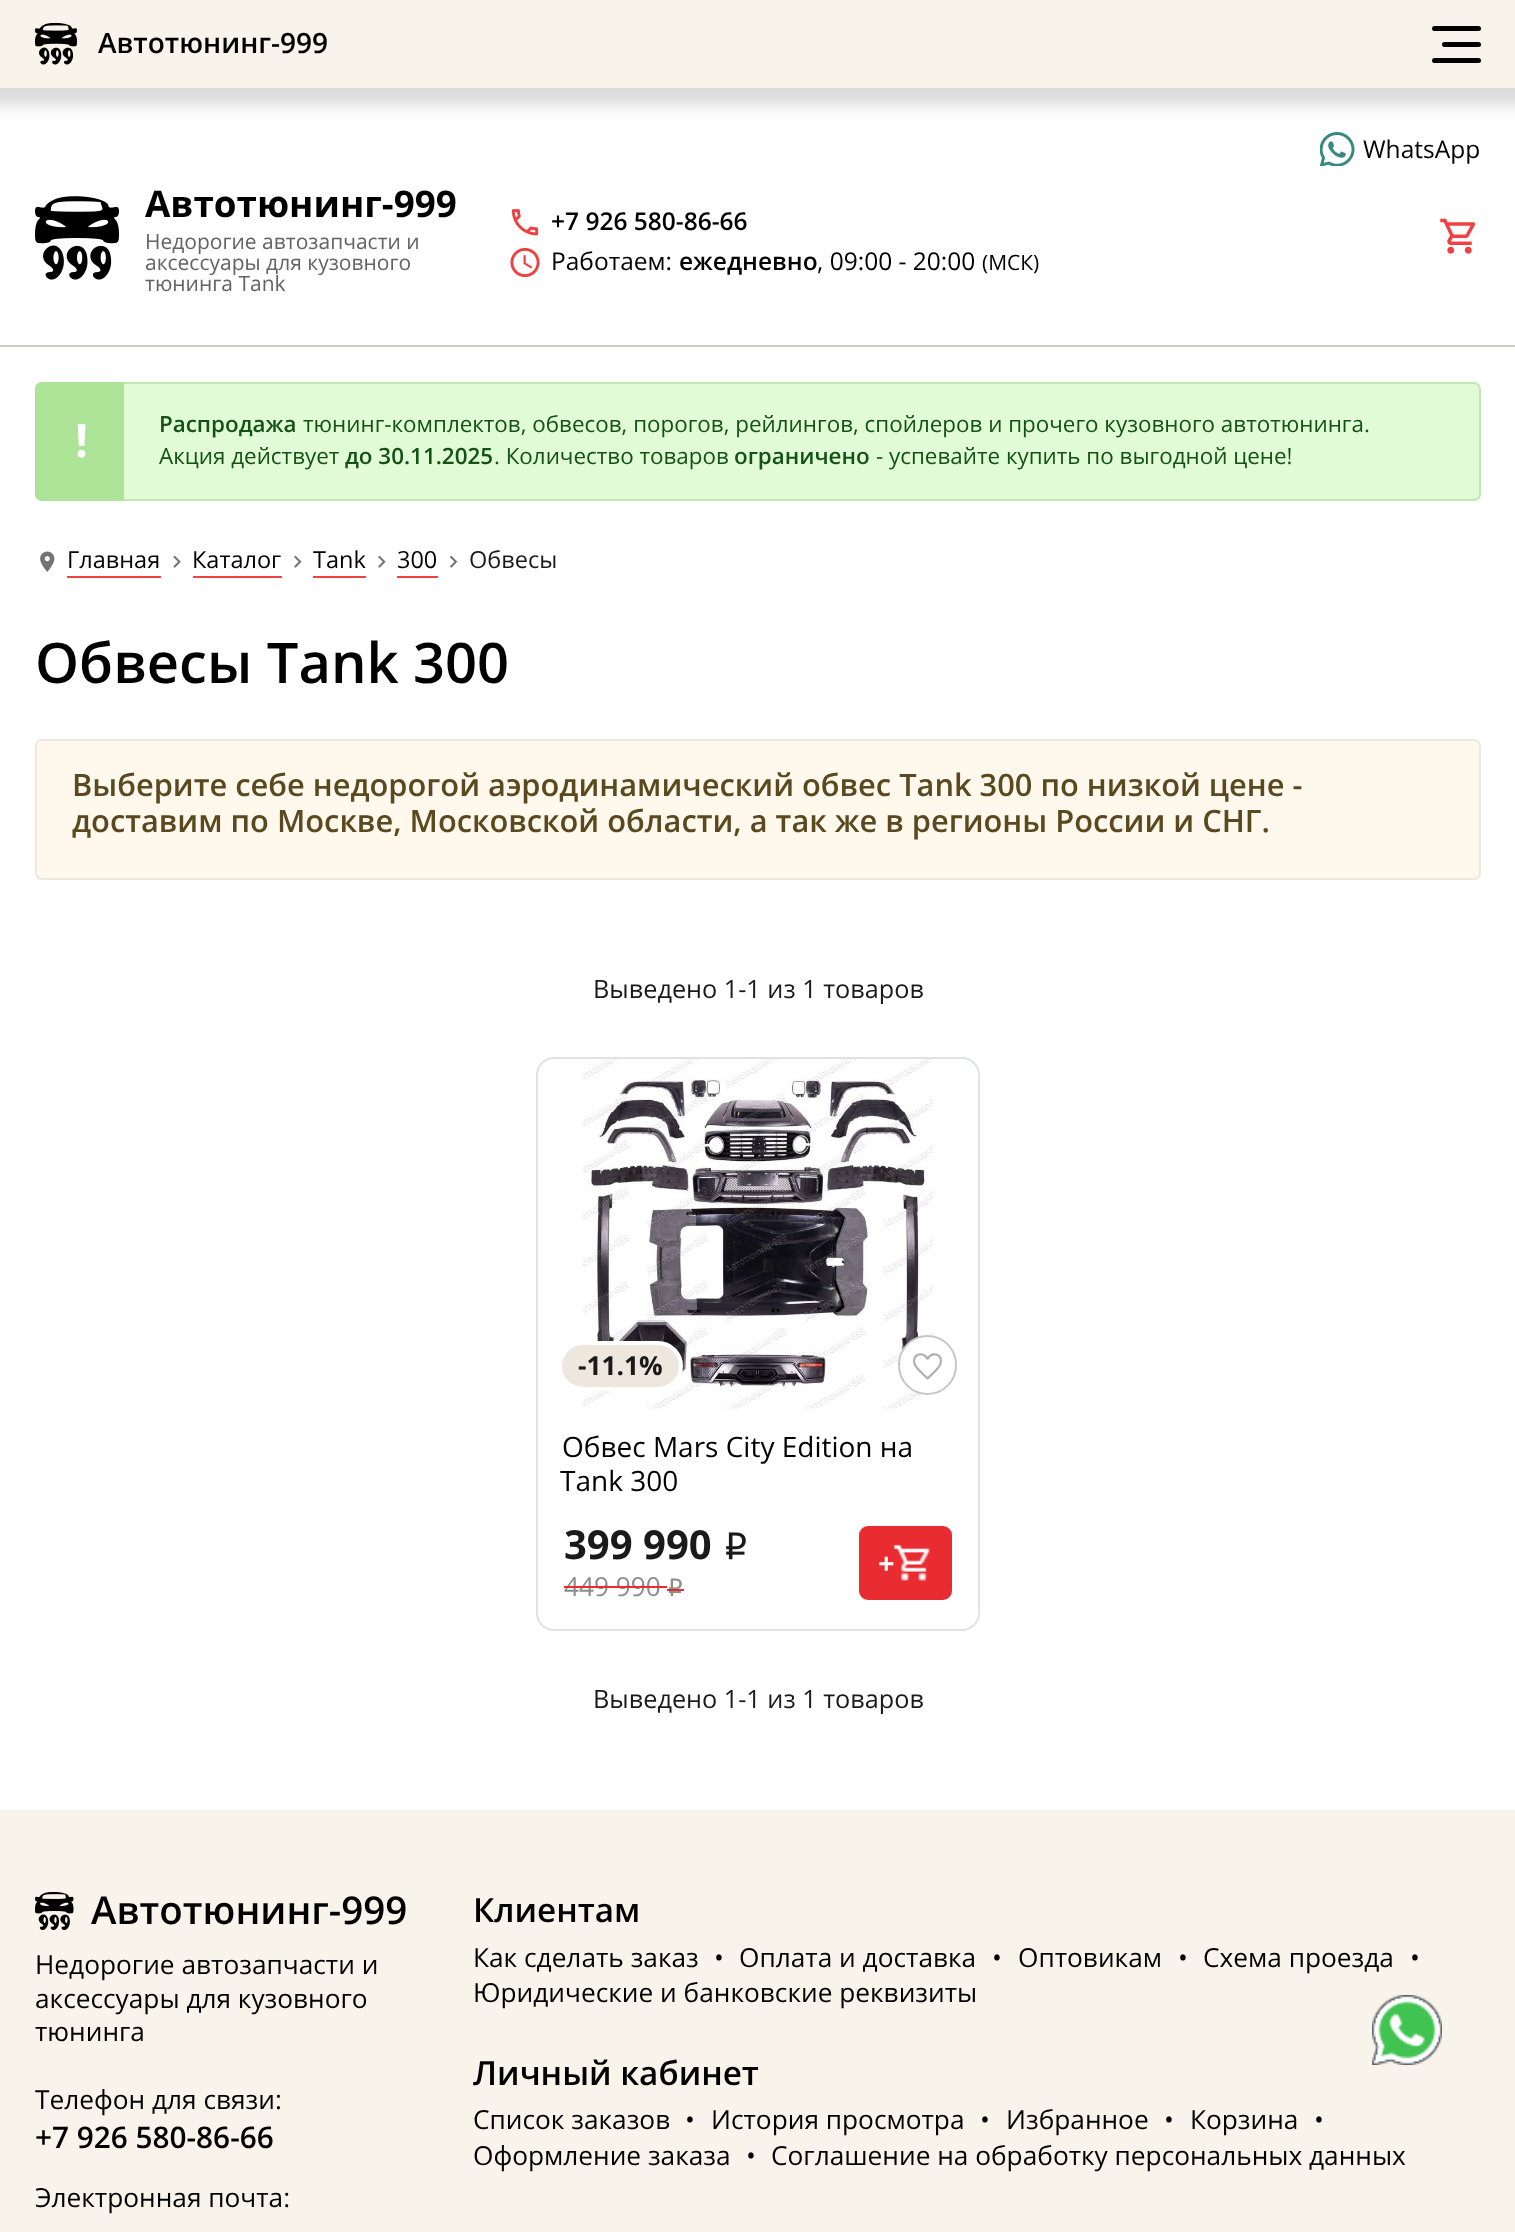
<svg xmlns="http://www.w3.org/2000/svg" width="1515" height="2232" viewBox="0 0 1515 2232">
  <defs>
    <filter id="blur1" x="-50%" y="-200%" width="200%" height="500%"><feGaussianBlur stdDeviation="9"/></filter>
  </defs>
  <rect width="100%" height="100%" fill="#ffffff"/>
  <image x="1320" y="132" width="35" height="34" href="img3.png"/>
  <rect x="-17" y="-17" width="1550" height="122" fill="#000000" fill-opacity="0.15" filter="url(#blur1)"/>
  <rect x="0" y="0" width="1515" height="88" fill="#f9f4eb"/>
  <image x="35" y="23" width="42" height="42" href="img1.png"/>
  <text x="98" y="53" font-family="Open Sans" font-size="28" font-weight="600" fill="#000000">Автотюнинг-999</text>
  <rect x="1432" y="26" width="49" height="5" rx="2.5" fill="#000000"/>
  <rect x="1442" y="42" width="39" height="5" rx="2.5" fill="#000000"/>
  <rect x="1432" y="58" width="49" height="5" rx="2.5" fill="#000000"/>
  <rect x="0" y="345" width="1515" height="2" fill="#d0cac0"/>
  <image x="35" y="196" width="84" height="84" href="img2.png"/>
  <text x="145" y="217" font-family="Open Sans" font-size="36.75" font-weight="bold" fill="#000000">Автотюнинг-999</text>
  <text x="145" y="249" font-family="Open Sans" font-size="21" fill="#636363">Недорогие автозапчасти и</text>
  <text x="145" y="270" font-family="Open Sans" font-size="21" fill="#636363">аксессуары для кузовного</text>
  <text x="145" y="291" font-family="Open Sans" font-size="21" fill="#636363">тюнинга Tank</text>
  <text x="1363" y="158" font-family="Open Sans" font-size="24.5" fill="#000000">WhatsApp</text>
  <image x="511" y="209" width="28" height="27" href="img4.png"/>
  <text x="551" y="230" font-family="Open Sans" font-size="24.5" font-weight="600" fill="#000000">+7 926 580-86-66</text>
  <image x="510" y="247" width="30" height="31" href="img5.png"/>
  <text x="551" y="270" font-family="Open Sans" font-size="24.5" fill="#000000">Работаем:</text>
  <text x="679" y="270" font-family="Open Sans" font-size="24.5" font-weight="600" fill="#000000">ежедневно</text>
  <text x="817" y="270" font-family="Open Sans" font-size="24.5" fill="#000000">, 09:00 - 20:00</text>
  <text x="982" y="270" font-family="Open Sans" font-size="21" fill="#000000">(МСК)</text>
  <image x="1440" y="218" width="36" height="36" href="img6.png"/>
  <rect x="36" y="383" width="1444" height="117" rx="6" fill="#e0fbd5" stroke="#c3e7b4" stroke-width="2"/>
  <path d="M42 382H124V501H42C38 501 35 498 35 494V389C35 385 38 382 42 382Z" fill="#ade397"/>
  <text x="75" y="457" font-family="Open Sans" font-size="46" font-weight="bold" fill="#ffffff">!</text>
  <text x="159" y="432" font-family="Open Sans" font-size="22.4" font-weight="600" fill="#135214">Распродажа</text>
  <text x="303" y="432" font-family="Open Sans" font-size="22.4" fill="#135214">тюнинг-комплектов, обвесов, порогов, рейлингов, спойлеров и прочего кузовного автотюнинга.</text>
  <text x="159" y="464" font-family="Open Sans" font-size="22.4" fill="#135214">Акция действует</text>
  <text x="345" y="464" font-family="Open Sans" font-size="22.4" font-weight="600" fill="#135214">до 30.11.2025</text>
  <text x="494" y="464" font-family="Open Sans" font-size="22.4" fill="#135214">. Количество товаров</text>
  <text x="734" y="464" font-family="Open Sans" font-size="22.4" font-weight="600" fill="#135214">ограничено</text>
  <text x="876" y="464" font-family="Open Sans" font-size="22.4" fill="#135214">- успевайте купить по выгодной цене!</text>
  <image x="40" y="551" width="15" height="21" href="img7.png"/>
  <text x="67" y="568" font-family="Open Sans" font-size="23.5" fill="#000000">Главная</text>
  <rect x="67" y="576" width="94" height="2" fill="#ef4042"/>
  <image x="173" y="555" width="8" height="13" href="img8.png"/>
  <text x="192" y="568" font-family="Open Sans" font-size="23.5" fill="#000000">Каталог</text>
  <rect x="193" y="576" width="89" height="2" fill="#ef4042"/>
  <image x="294" y="555" width="8" height="13" href="img9.png"/>
  <text x="313" y="568" font-family="Open Sans" font-size="23.5" fill="#000000">Tank</text>
  <rect x="313" y="576" width="53" height="2" fill="#ef4042"/>
  <image x="378" y="555" width="8" height="13" href="img9.png"/>
  <text x="397" y="568" font-family="Open Sans" font-size="23.5" fill="#000000">300</text>
  <rect x="397" y="576" width="41" height="2" fill="#ef4042"/>
  <image x="449" y="555" width="9" height="13" href="img10.png"/>
  <text x="469" y="568" font-family="Open Sans" font-size="23.5" fill="#1a1a1a">Обвесы</text>
  <text x="35" y="683" font-family="Open Sans" font-size="56" font-weight="600" fill="#000000">Обвесы Tank 300</text>
  <rect x="36" y="740" width="1444" height="139" rx="6" fill="#fff8ed" stroke="#eee7de" stroke-width="2"/>
  <text x="72" y="796" font-family="Open Sans" font-size="30.8" font-weight="600" fill="#5a491f">Выберите себе недорогой аэродинамический обвес Tank 300 по низкой цене -</text>
  <text x="72" y="832" font-family="Open Sans" font-size="30.8" font-weight="600" fill="#5a491f">доставим по Москве, Московской области, а так же в регионы России и СНГ.</text>
  <text x="593" y="998" font-family="Open Sans" font-size="25.25" fill="#1a1a1a">Выведено 1-1 из 1 товаров</text>
  <rect x="537" y="1058" width="442" height="572" rx="17" fill="none" stroke="#e1e2e7" stroke-width="2"/>
  <image x="582" y="1059" width="351" height="350" href="img11.png"/>
  <rect x="560" y="1343" width="121" height="46" rx="23" fill="#eee7de" stroke="#ffffff" stroke-width="4"/>
  <text x="578" y="1375" font-family="Open Sans" font-size="26.25" font-weight="bold" fill="#1a1a1a">-11.1%</text>
  <rect x="899" y="1336" width="57" height="58" rx="28.5" fill="#ffffff" stroke="#c6c6c6" stroke-width="2"/>
  <image x="913" y="1353" width="29" height="27" href="img12.png"/>
  <text x="562" y="1457" font-family="Open Sans" font-size="28" fill="#000000">Обвес Mars City Edition на</text>
  <text x="560" y="1491" font-family="Open Sans" font-size="28" fill="#000000">Tank 300</text>
  <text x="564" y="1559" font-family="Open Sans" font-size="40" font-weight="bold" fill="#1a1a1a">399 990</text>
  <image x="726" y="1532" width="20" height="28" href="img13.png"/>
  <text x="564" y="1596" font-family="Open Sans" font-size="26.25" fill="#8c8c8c">449 990</text>
  <rect x="564" y="1586" width="103" height="2" fill="#e82c31"/>
  <image x="669" y="1578" width="13" height="18" href="img14.png"/>
  <rect x="667" y="1589" width="17" height="2" fill="#e82c31"/>
  <rect x="861" y="1528" width="89" height="70" rx="7" fill="#e82c31" stroke="#e82c31" stroke-width="4"/>
  <image x="893" y="1544" width="37" height="37" href="img15.png"/>
  <text x="878" y="1574" font-family="Open Sans" font-size="29" font-weight="bold" fill="#ffffff">+</text>
  <text x="593" y="1708" font-family="Open Sans" font-size="25.25" fill="#1a1a1a">Выведено 1-1 из 1 товаров</text>
  <rect x="0" y="1810" width="1515" height="422" fill="#f9f4eb"/>
  <image x="35" y="1892" width="39" height="38" href="img16.png"/>
  <text x="91" y="1924" font-family="Open Sans" font-size="38.5" font-weight="600" fill="#000000">Автотюнинг-999</text>
  <text x="35" y="1974" font-family="Open Sans" font-size="26.25" fill="#000000">Недорогие автозапчасти и</text>
  <text x="35" y="2008" font-family="Open Sans" font-size="26.25" fill="#000000">аксессуары для кузовного</text>
  <text x="35" y="2041" font-family="Open Sans" font-size="26.25" fill="#000000">тюнинга</text>
  <text x="35" y="2109" font-family="Open Sans" font-size="26.25" fill="#000000">Телефон для связи:</text>
  <text x="35" y="2148" font-family="Open Sans" font-size="29.75" font-weight="600" fill="#000000">+7 926 580-86-66</text>
  <text x="35" y="2207" font-family="Open Sans" font-size="26.25" fill="#000000">Электронная почта:</text>
  <text x="473" y="1922" font-family="Open Sans" font-size="33.25" font-weight="600" fill="#000000">Клиентам</text>
  <text x="473" y="1967" font-family="Open Sans" font-size="26.25" fill="#000000">Как сделать заказ</text>
  <text x="714" y="1967" font-family="Open Sans" font-size="26.25" fill="#000000">•</text>
  <text x="739" y="1967" font-family="Open Sans" font-size="26.25" fill="#000000">Оплата и доставка</text>
  <text x="992" y="1967" font-family="Open Sans" font-size="26.25" fill="#000000">•</text>
  <text x="1018" y="1967" font-family="Open Sans" font-size="26.25" fill="#000000">Оптовикам</text>
  <text x="1178" y="1967" font-family="Open Sans" font-size="26.25" fill="#000000">•</text>
  <text x="1203" y="1967" font-family="Open Sans" font-size="26.25" fill="#000000">Схема проезда</text>
  <text x="1410" y="1967" font-family="Open Sans" font-size="26.25" fill="#000000">•</text>
  <text x="473" y="2002" font-family="Open Sans" font-size="26.25" fill="#000000">Юридические и банковские реквизиты</text>
  <text x="473" y="2085" font-family="Open Sans" font-size="33.25" font-weight="600" fill="#000000">Личный кабинет</text>
  <text x="473" y="2129" font-family="Open Sans" font-size="26.25" fill="#000000">Список заказов</text>
  <text x="685" y="2129" font-family="Open Sans" font-size="26.25" fill="#000000">•</text>
  <text x="711" y="2129" font-family="Open Sans" font-size="26.25" fill="#000000">История просмотра</text>
  <text x="980" y="2129" font-family="Open Sans" font-size="26.25" fill="#000000">•</text>
  <text x="1006" y="2129" font-family="Open Sans" font-size="26.25" fill="#000000">Избранное</text>
  <text x="1164" y="2129" font-family="Open Sans" font-size="26.25" fill="#000000">•</text>
  <text x="1190" y="2129" font-family="Open Sans" font-size="26.25" fill="#000000">Корзина</text>
  <text x="1314" y="2129" font-family="Open Sans" font-size="26.25" fill="#000000">•</text>
  <text x="473" y="2165" font-family="Open Sans" font-size="26.25" fill="#000000">Оформление заказа</text>
  <text x="746" y="2165" font-family="Open Sans" font-size="26.25" fill="#000000">•</text>
  <text x="771" y="2165" font-family="Open Sans" font-size="26.25" fill="#000000">Соглашение на обработку персональных данных</text>
  <image x="1372" y="1995" width="70" height="70" href="img17.png"/>
</svg>
